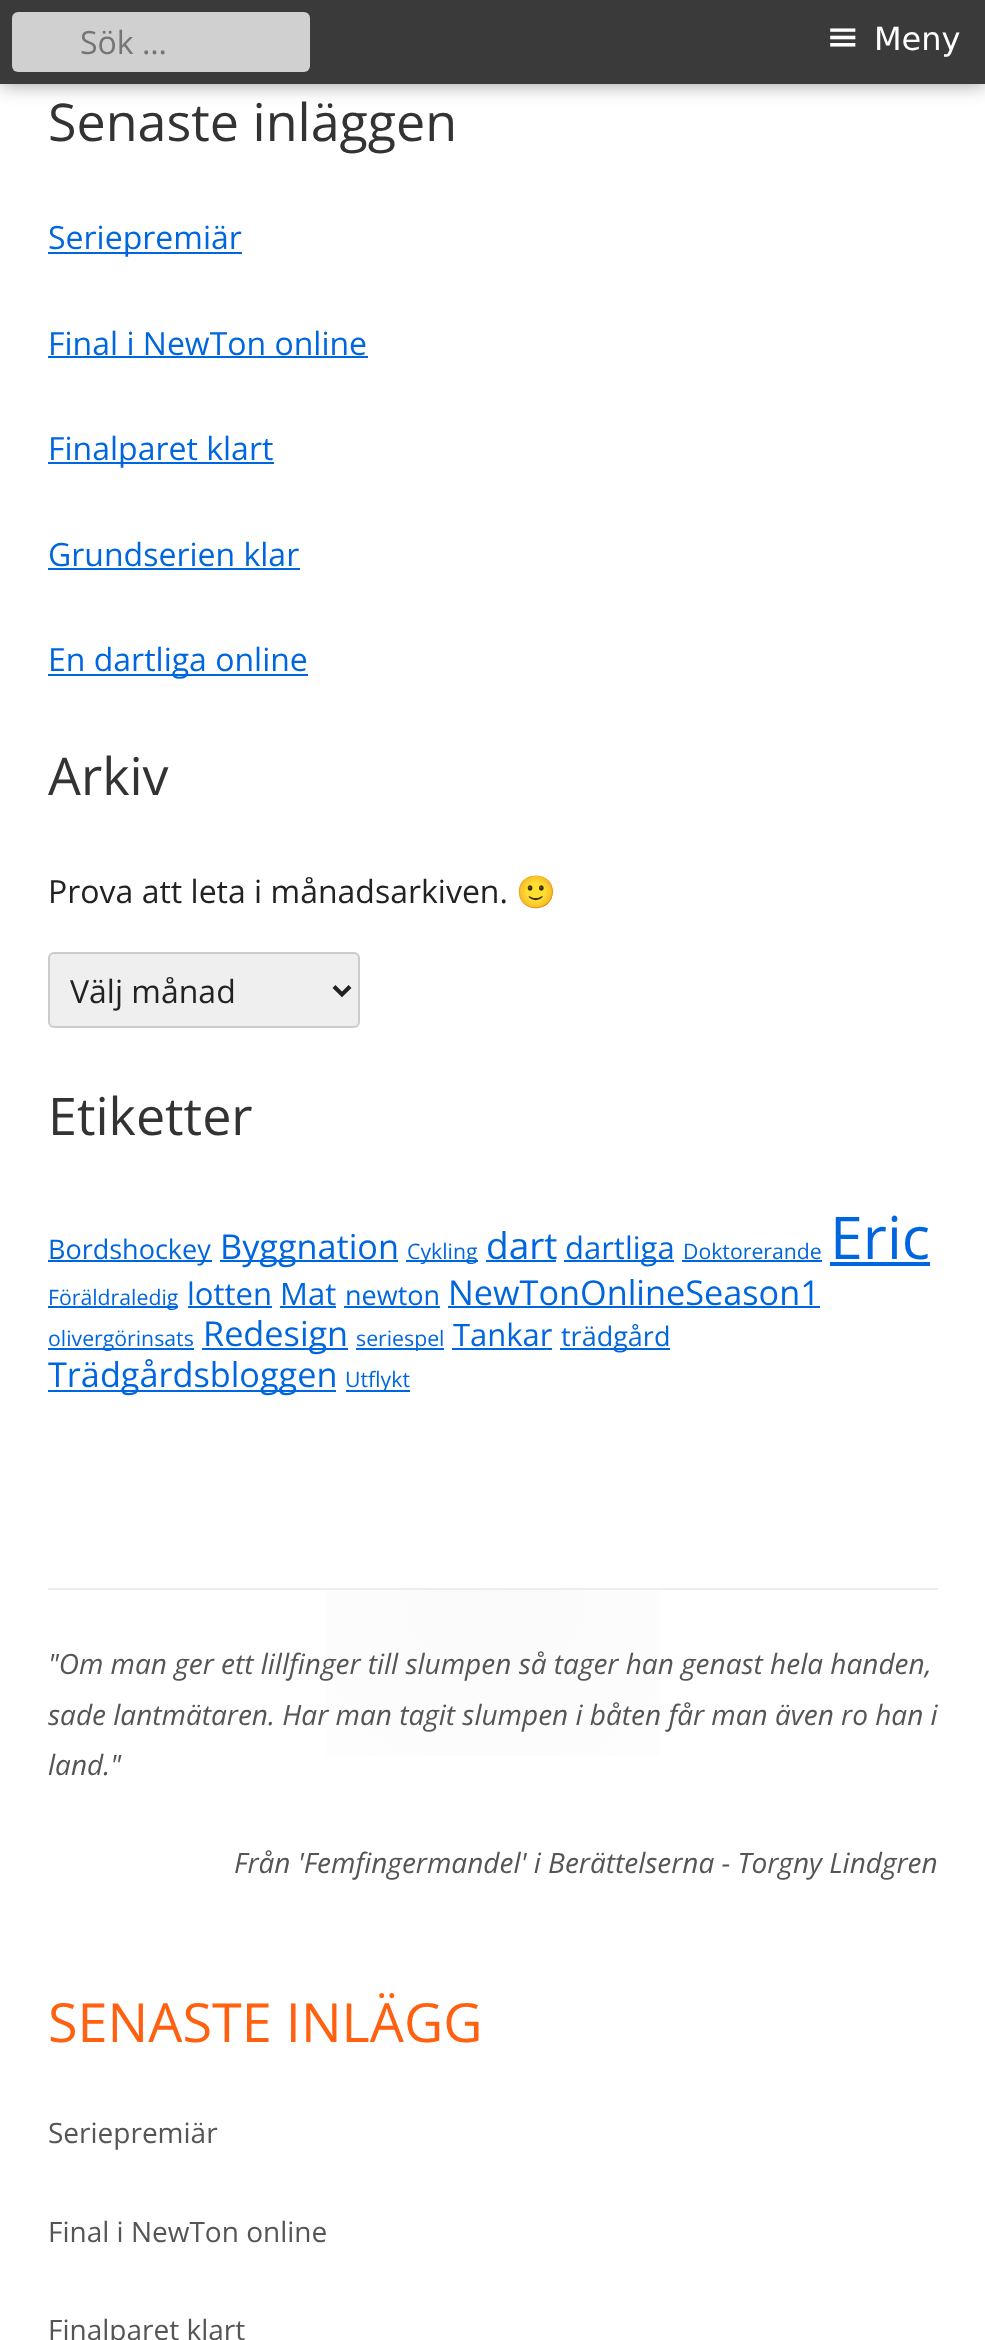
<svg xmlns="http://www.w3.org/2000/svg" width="985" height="2340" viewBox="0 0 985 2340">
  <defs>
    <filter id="blur1" x="-50%" y="-200%" width="200%" height="500%"><feGaussianBlur stdDeviation="10"/></filter>
    <radialGradient id="g1" gradientUnits="userSpaceOnUse" cx="493" cy="1590" r="445"><stop offset="0" stop-color="#fbfbfb"/><stop offset="1" stop-color="#ffffff"/></radialGradient>
  </defs>
  <rect width="100%" height="100%" fill="#ffffff"/>
  <rect x="0" y="0" width="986" height="84" fill="#000000" fill-opacity="0.4" filter="url(#blur1)"/>
  <rect x="0" y="0" width="985" height="84" fill="#3a3a3a"/>
  <rect x="12" y="12" width="298" height="60" rx="6" fill="#d0d0d0"/>
  <text x="80" y="54" font-family="Open Sans" font-size="32" fill="#757575">Sök …</text>
  <text x="826" y="50" font-family="DejaVu Sans" font-size="40" fill="#ffffff">≡</text>
  <text x="874" y="50" font-family="DejaVu Sans" font-size="32" fill="#ffffff">Meny</text>
  <text x="48" y="141" font-family="Open Sans" font-size="52" fill="#333333">Senaste inläggen</text>
  <rect x="48" y="252" width="194" height="2" fill="#0066df"/>
  <text x="48" y="249" font-family="Open Sans" font-size="32" fill="#0066df">Seriepremiär</text>
  <text x="48" y="355" font-family="Open Sans" font-size="32" fill="#0066df">Final i NewTon online</text>
  <rect x="48" y="356" width="320" height="2" fill="#0066df"/>
  <rect x="48" y="462" width="226" height="2" fill="#0066df"/>
  <text x="48" y="460" font-family="Open Sans" font-size="32" fill="#0066df">Finalparet klart</text>
  <text x="48" y="566" font-family="Open Sans" font-size="32" fill="#0066df">Grundserien klar</text>
  <rect x="48" y="568" width="252" height="2" fill="#0066df"/>
  <rect x="48" y="674" width="260" height="2" fill="#0066df"/>
  <text x="48" y="671" font-family="Open Sans" font-size="32" fill="#0066df">En dartliga online</text>
  <text x="48" y="795" font-family="Open Sans" font-size="52" fill="#333333">Arkiv</text>
  <text x="48" y="903" font-family="Open Sans" font-size="32" fill="#222222">Prova att leta i månadsarkiven.</text>
  <text x="516" y="903" font-family="Noto Color Emoji" font-size="32" fill="#222222">🙂</text>
  <rect x="49" y="953" width="310" height="74" rx="5" fill="#efefef" stroke="#cccccc" stroke-width="2"/>
  <path d="M334 986.5L342 994.5L350 986.5" fill="none" stroke="#222222" stroke-width="4"/>
  <text x="70" y="1003" font-family="Open Sans" font-size="32" fill="#222222">Välj månad</text>
  <text x="48" y="1135" font-family="Open Sans" font-size="52" fill="#333333">Etiketter</text>
  <rect x="48" y="1260" width="164" height="2" fill="#0066df"/>
  <text x="48" y="1259" font-family="Open Sans" font-size="27" fill="#0066df">Bordshockey</text>
  <rect x="220" y="1260" width="178" height="2" fill="#0066df"/>
  <text x="220" y="1259" font-family="Open Sans" font-size="34.25" fill="#0066df">Byggnation</text>
  <rect x="406" y="1260" width="72" height="2" fill="#0066df"/>
  <text x="407" y="1259" font-family="Open Sans" font-size="21.25" fill="#0066df">Cykling</text>
  <text x="486" y="1259" font-family="Open Sans" font-size="37" fill="#0066df">dart</text>
  <rect x="486" y="1260" width="70" height="2" fill="#0066df"/>
  <rect x="564" y="1260" width="110" height="2" fill="#0066df"/>
  <text x="565" y="1259" font-family="Open Sans" font-size="31" fill="#0066df">dartliga</text>
  <text x="683" y="1259" font-family="Open Sans" font-size="21.25" fill="#0066df">Doktorerande</text>
  <rect x="682" y="1260" width="140" height="2" fill="#0066df"/>
  <text x="830" y="1259" font-family="Open Sans" font-size="59" fill="#0066df">Eric</text>
  <rect x="830" y="1262" width="100" height="4" fill="#0066df"/>
  <rect x="48" y="1306" width="130" height="2" fill="#0066df"/>
  <text x="48" y="1305" font-family="Open Sans" font-size="21.25" fill="#0066df">Föräldraledig</text>
  <text x="187" y="1305" font-family="Open Sans" font-size="31" fill="#0066df">lotten Mat</text>
  <rect x="188" y="1306" width="84" height="2" fill="#0066df"/>
  <text x="345" y="1305" font-family="Open Sans" font-size="27" fill="#0066df">newton</text>
  <rect x="344" y="1306" width="96" height="2" fill="#0066df"/>
  <text x="448" y="1305" font-family="Open Sans" font-size="34.25" fill="#0066df">NewTonOnlineSeason1</text>
  <rect x="448" y="1306" width="372" height="2" fill="#0066df"/>
  <rect x="280" y="1306" width="56" height="2" fill="#0066df"/>
  <rect x="48" y="1348" width="146" height="2" fill="#0066df"/>
  <text x="48" y="1346" font-family="Open Sans" font-size="21.25" fill="#0066df">olivergörinsats</text>
  <rect x="202" y="1348" width="146" height="2" fill="#0066df"/>
  <text x="203" y="1346" font-family="Open Sans" font-size="34.25" fill="#0066df">Redesign</text>
  <rect x="356" y="1348" width="88" height="2" fill="#0066df"/>
  <text x="356" y="1346" font-family="Open Sans" font-size="21.25" fill="#0066df">seriespel</text>
  <text x="453" y="1346" font-family="Open Sans" font-size="31" fill="#0066df">Tankar</text>
  <rect x="452" y="1348" width="100" height="2" fill="#0066df"/>
  <rect x="560" y="1348" width="110" height="2" fill="#0066df"/>
  <text x="561" y="1346" font-family="Open Sans" font-size="27" fill="#0066df">trädgård</text>
  <rect x="48" y="1390" width="288" height="2" fill="#0066df"/>
  <text x="48" y="1387" font-family="Open Sans" font-size="34.25" fill="#0066df">Trädgårdsbloggen</text>
  <rect x="346" y="1390" width="64" height="2" fill="#0066df"/>
  <text x="345" y="1387" font-family="Open Sans" font-size="21.25" fill="#0066df">Utflykt</text>
  <rect x="326" y="1590" width="334" height="166" fill="url(#g1)"/>
  <rect x="48" y="1588" width="890" height="2" fill="#ededed"/>
  <text x="48" y="1674" font-family="Open Sans" font-size="28" font-style="italic" fill="#555555">"Om man ger ett lillfinger till slumpen så tager han genast hela handen,</text>
  <text x="48" y="1725" font-family="Open Sans" font-size="28" font-style="italic" fill="#555555">sade lantmätaren. Har man tagit slumpen i båten får man även ro han i</text>
  <text x="48" y="1775" font-family="Open Sans" font-size="28" font-style="italic" fill="#555555">land."</text>
  <text x="234" y="1873" font-family="Open Sans" font-size="28" font-style="italic" fill="#555555">Från 'Femfingermandel' i Berättelserna - Torgny Lindgren</text>
  <text x="48" y="2042" font-family="Open Sans" font-size="54" fill="#ff6111">SENASTE INLÄGG</text>
  <text x="48" y="2143" font-family="Open Sans" font-size="28" fill="#555555">Seriepremiär</text>
  <text x="48" y="2242" font-family="Open Sans" font-size="28" fill="#555555">Final i NewTon online</text>
  <text x="48" y="2340" font-family="Open Sans" font-size="28" fill="#555555">Finalparet klart</text>
</svg>
